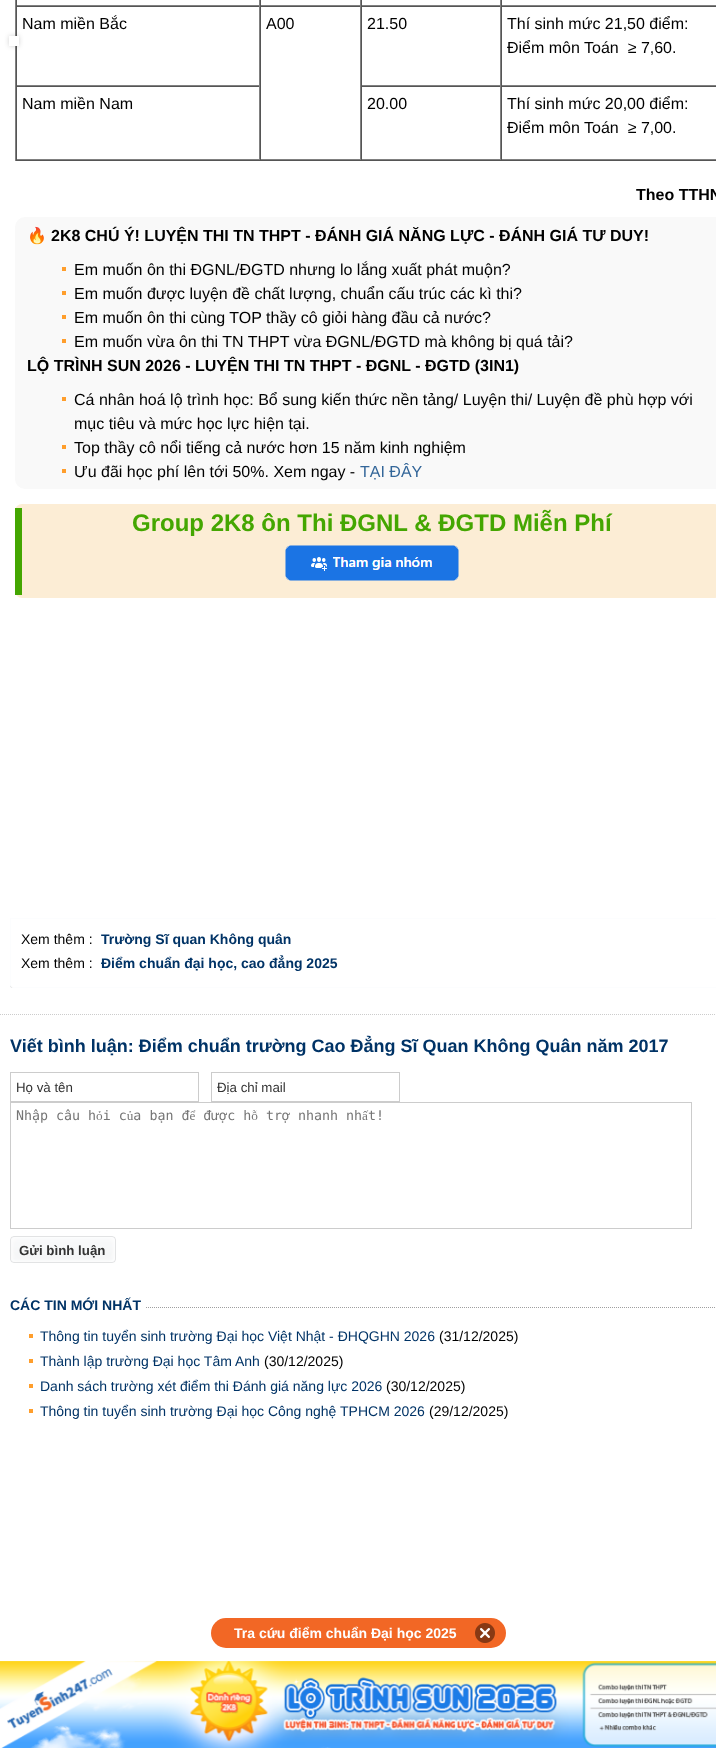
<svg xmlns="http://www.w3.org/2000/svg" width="716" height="1748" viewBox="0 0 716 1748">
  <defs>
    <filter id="blur1" x="-50%" y="-200%" width="200%" height="500%"><feGaussianBlur stdDeviation="2.5"/></filter>
    <filter id="blur2" x="-50%" y="-200%" width="200%" height="500%"><feGaussianBlur stdDeviation="0.5"/></filter>
  </defs>
  <rect width="100%" height="100%" fill="#ffffff"/>
  <rect x="15" y="160" width="701" height="1" fill="#555555"/>
  <rect x="15" y="0" width="1" height="161" fill="#808080"/>
  <rect x="16" y="6" width="700" height="1" fill="#555555"/>
  <rect x="259" y="6" width="1" height="80" fill="#808080"/>
  <rect x="16" y="85" width="244" height="1" fill="#808080"/>
  <rect x="16" y="6" width="1" height="80" fill="#555555"/>
  <rect x="9" y="36" width="10" height="10" fill="#000000" fill-opacity="0.18" filter="url(#blur1)"/>
  <rect x="9" y="36" width="10" height="10" fill="#ffffff"/>
  <rect x="259" y="0" width="1" height="6" fill="#808080"/>
  <rect x="16" y="5" width="244" height="1" fill="#808080"/>
  <rect x="16" y="0" width="1" height="6" fill="#555555"/>
  <rect x="360" y="0" width="1" height="6" fill="#808080"/>
  <rect x="260" y="5" width="101" height="1" fill="#808080"/>
  <rect x="260" y="0" width="1" height="6" fill="#555555"/>
  <rect x="500" y="0" width="1" height="6" fill="#808080"/>
  <rect x="361" y="5" width="355" height="1" fill="#808080"/>
  <rect x="361" y="0" width="1" height="6" fill="#555555"/>
  <rect x="501" y="0" width="1" height="6" fill="#555555"/>
  <text x="22" y="29" font-family="Liberation Sans" font-size="16" fill="#000000">Nam miền Bắc</text>
  <rect x="360" y="6" width="1" height="154" fill="#808080"/>
  <rect x="260" y="159" width="101" height="1" fill="#808080"/>
  <rect x="260" y="6" width="1" height="154" fill="#555555"/>
  <text x="266" y="29" font-family="Liberation Sans" font-size="16" fill="#000000">A00</text>
  <rect x="500" y="6" width="1" height="80" fill="#808080"/>
  <rect x="361" y="85" width="355" height="1" fill="#808080"/>
  <rect x="361" y="6" width="1" height="80" fill="#555555"/>
  <text x="367" y="29" font-family="Liberation Sans" font-size="16" fill="#000000">21.50</text>
  <rect x="501" y="6" width="1" height="80" fill="#555555"/>
  <text x="507" y="29" font-family="Liberation Sans" font-size="16" fill="#000000">Thí sinh mức 21,50 điểm:</text>
  <text x="507" y="53" font-family="Liberation Sans" font-size="16" fill="#000000" xml:space="preserve">Điểm môn Toán  ≥ 7,60.</text>
  <rect x="16" y="86" width="244" height="1" fill="#555555"/>
  <rect x="259" y="86" width="1" height="74" fill="#808080"/>
  <rect x="16" y="159" width="244" height="1" fill="#808080"/>
  <rect x="16" y="86" width="1" height="74" fill="#555555"/>
  <text x="22" y="109" font-family="Liberation Sans" font-size="16" fill="#000000">Nam miền Nam</text>
  <rect x="361" y="86" width="355" height="1" fill="#555555"/>
  <rect x="500" y="86" width="1" height="74" fill="#808080"/>
  <rect x="361" y="159" width="355" height="1" fill="#808080"/>
  <rect x="361" y="86" width="1" height="74" fill="#555555"/>
  <text x="367" y="109" font-family="Liberation Sans" font-size="16" fill="#000000">20.00</text>
  <rect x="501" y="86" width="1" height="74" fill="#555555"/>
  <text x="507" y="109" font-family="Liberation Sans" font-size="16" fill="#000000">Thí sinh mức 20,00 điểm:</text>
  <text x="507" y="133" font-family="Liberation Sans" font-size="16" fill="#000000" xml:space="preserve">Điểm môn Toán  ≥ 7,00.</text>
  <text x="636" y="200" font-family="Liberation Sans" font-size="16" font-weight="bold" fill="#000000">Theo TTHN</text>
  <rect x="15" y="217" width="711" height="272" rx="10" fill="#f9f9f9"/>
  <text x="27" y="241" font-family="Noto Color Emoji" font-size="16" font-weight="bold" fill="#000000">🔥</text>
  <text x="51" y="241" font-family="Liberation Sans" font-size="16" font-weight="bold" fill="#000000">2K8 CHÚ Ý! LUYỆN THI TN THPT - ĐÁNH GIÁ NĂNG LỰC - ĐÁNH GIÁ TƯ DUY!</text>
  <rect x="62" y="267" width="4" height="4" fill="#ff9e2c"/>
  <text x="74" y="275" font-family="Liberation Sans" font-size="16" fill="#000000">Em muốn ôn thi ĐGNL/ĐGTD nhưng lo lắng xuất phát muộn?</text>
  <rect x="62" y="291" width="4" height="4" fill="#ff9e2c"/>
  <text x="74" y="299" font-family="Liberation Sans" font-size="16" fill="#000000">Em muốn được luyện đề chất lượng, chuẩn cấu trúc các kì thi?</text>
  <rect x="62" y="315" width="4" height="4" fill="#ff9e2c"/>
  <text x="74" y="323" font-family="Liberation Sans" font-size="16" fill="#000000">Em muốn ôn thi cùng TOP thầy cô giỏi hàng đầu cả nước?</text>
  <rect x="62" y="339" width="4" height="4" fill="#ff9e2c"/>
  <text x="74" y="347" font-family="Liberation Sans" font-size="16" fill="#000000">Em muốn vừa ôn thi TN THPT vừa ĐGNL/ĐGTD mà không bị quá tải?</text>
  <text x="27" y="371" font-family="Liberation Sans" font-size="16" font-weight="bold" fill="#000000">LỘ TRÌNH SUN 2026 - LUYỆN THI TN THPT - ĐGNL - ĐGTD (3IN1)</text>
  <rect x="62" y="397" width="4" height="4" fill="#ff9e2c"/>
  <text x="74" y="405" font-family="Liberation Sans" font-size="16" fill="#000000">Cá nhân hoá lộ trình học: Bổ sung kiến thức nền tảng/ Luyện thi/ Luyện đề phù hợp với</text>
  <text x="74" y="429" font-family="Liberation Sans" font-size="16" fill="#000000">mục tiêu và mức học lực hiện tại.</text>
  <rect x="62" y="445" width="4" height="4" fill="#ff9e2c"/>
  <text x="74" y="453" font-family="Liberation Sans" font-size="16" fill="#000000">Top thầy cô nổi tiếng cả nước hơn 15 năm kinh nghiệm</text>
  <rect x="62" y="469" width="4" height="4" fill="#ff9e2c"/>
  <text x="74" y="477" font-family="Liberation Sans" font-size="16" fill="#000000">Ưu đãi học phí lên tới 50%. Xem ngay -</text>
  <text x="360" y="477" font-family="Liberation Sans" font-size="16" fill="#336699">TẠI ĐÂY</text>
  <rect x="15" y="504" width="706" height="94" rx="7" fill="#fcedd5"/>
  <rect x="15" y="508" width="7" height="87" fill="#44a601"/>
  <text x="132" y="531" font-family="Liberation Sans" font-size="24" font-weight="bold" fill="#44a601">Group 2K8 ôn Thi ĐGNL &amp; ĐGTD Miễn Phí</text>
  <image x="285" y="545" width="174" height="36" href="img1.png"/>
  <rect x="10" y="918" width="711" height="70" rx="3" fill="#cccccc" filter="url(#blur2)"/>
  <path d="M10.5 918.5H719.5V985C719.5 986.5 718.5 987.5 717 987.5H13C11.5 987.5 10.5 986.5 10.5 985Z" fill="#ffffff" stroke="#fcfdfe"/>
  <text x="21" y="944" font-family="Liberation Sans" font-size="14" fill="#000000">Xem thêm :</text>
  <text x="101" y="944" font-family="Liberation Sans" font-size="14" font-weight="bold" fill="#003366">Trường Sĩ quan Không quân</text>
  <text x="21" y="968" font-family="Liberation Sans" font-size="14" fill="#000000">Xem thêm :</text>
  <text x="101" y="968" font-family="Liberation Sans" font-size="14" font-weight="bold" fill="#003366">Điểm chuẩn đại học, cao đẳng 2025</text>
  <path d="M0 1014.5H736" fill="none" stroke="#cccccc" stroke-dasharray="1 1"/>
  <text x="10" y="1052" font-family="Liberation Sans" font-size="18" font-weight="bold" fill="#003366">Viết bình luận: Điểm chuẩn trường Cao Đẳng Sĩ Quan Không Quân năm 2017</text>
  <rect x="10.5" y="1072.5" width="188" height="29" fill="none" stroke="#cccccc"/>
  <text x="16" y="1092" font-family="Liberation Sans" font-size="13.3" fill="#333333">Họ và tên</text>
  <rect x="211.5" y="1072.5" width="188" height="29" fill="none" stroke="#cccccc"/>
  <text x="217" y="1092" font-family="Liberation Sans" font-size="13.3" fill="#333333">Địa chỉ mail</text>
  <rect x="10.5" y="1102.5" width="681" height="126" fill="none" stroke="#cccccc"/>
  <text x="16" y="1120" font-family="DejaVu Sans Mono" font-size="13.3" fill="#757575">Nhập câu hỏi của bạn để được hỗ trợ nhanh nhất!</text>
  <image x="10" y="1236" width="10" height="27" href="img2.png"/>
  <image x="20" y="1236" width="96" height="27" href="img3.png"/>
  <text x="19" y="1255" font-family="Liberation Sans" font-size="13.3" font-weight="bold" fill="#333333">Gửi bình luận</text>
  <path d="M10 1307.5H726" fill="none" stroke="#9f9fa0" stroke-dasharray="1 1"/>
  <rect x="10" y="1307" width="135" height="1" fill="#ffffff"/>
  <text x="10" y="1310" font-family="Liberation Sans" font-size="14" font-weight="bold" fill="#003366">CÁC TIN MỚI NHẤT</text>
  <text x="40" y="1341" font-family="Liberation Sans" font-size="14" fill="#003366">Thông tin tuyển sinh trường Đại học Việt Nhật - ĐHQGHN 2026</text>
  <rect x="29" y="1334" width="4" height="4" fill="#ff9e2c"/>
  <text x="439" y="1341" font-family="Liberation Sans" font-size="14" fill="#000000">(31/12/2025)</text>
  <text x="40" y="1366" font-family="Liberation Sans" font-size="14" fill="#003366">Thành lập trường Đại học Tâm Anh</text>
  <rect x="29" y="1359" width="4" height="4" fill="#ff9e2c"/>
  <text x="264" y="1366" font-family="Liberation Sans" font-size="14" fill="#000000">(30/12/2025)</text>
  <text x="40" y="1391" font-family="Liberation Sans" font-size="14" fill="#003366">Danh sách trường xét điểm thi Đánh giá năng lực 2026</text>
  <rect x="29" y="1384" width="4" height="4" fill="#ff9e2c"/>
  <text x="386" y="1391" font-family="Liberation Sans" font-size="14" fill="#000000">(30/12/2025)</text>
  <text x="40" y="1416" font-family="Liberation Sans" font-size="14" fill="#003366">Thông tin tuyển sinh trường Đại học Công nghệ TPHCM 2026</text>
  <rect x="29" y="1409" width="4" height="4" fill="#ff9e2c"/>
  <text x="429" y="1416" font-family="Liberation Sans" font-size="14" fill="#000000">(29/12/2025)</text>
  <rect x="211" y="1618" width="295" height="30" rx="15" fill="#f26725"/>
  <text x="234" y="1638" font-family="Liberation Sans" font-size="14" font-weight="bold" fill="#ffffff">Tra cứu điểm chuẩn Đại học 2025</text>
  <image x="475" y="1623" width="20" height="20" href="img4.png"/>
  <image x="0" y="1661" width="716" height="87" href="img5.png"/>
</svg>
